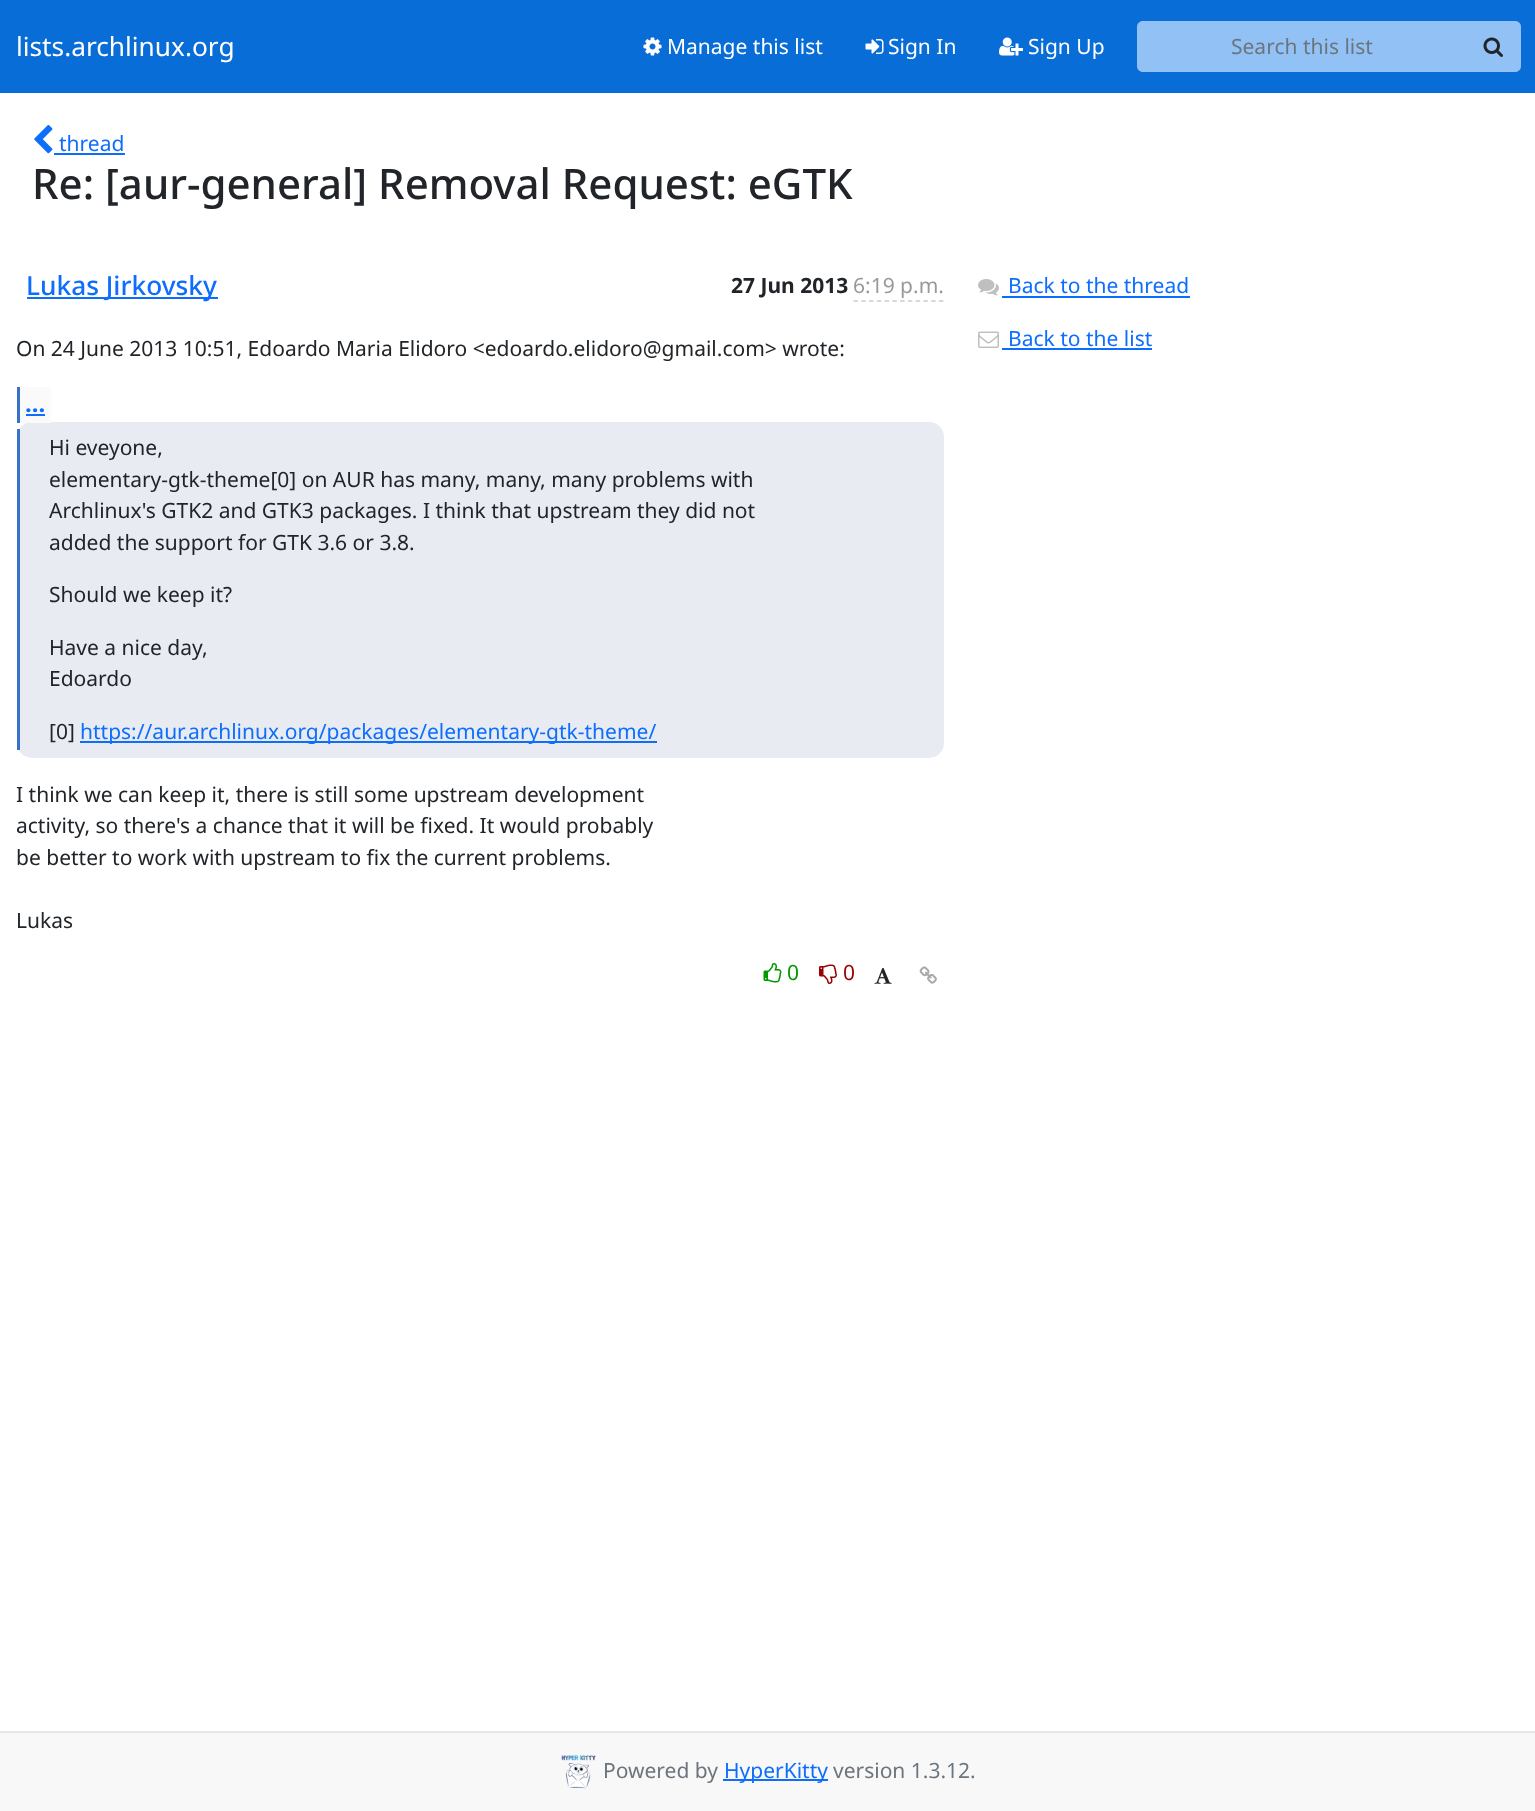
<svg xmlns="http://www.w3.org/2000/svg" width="1535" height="1811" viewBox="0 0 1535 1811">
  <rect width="100%" height="100%" fill="#ffffff"/>
  <rect x="0" y="0" width="1535" height="93" fill="#086dd7"/>
  <text x="16" y="56" font-family="Noto Sans" font-size="26.25" fill="#ffffff">lists.archlinux.org</text>
  <image x="643" y="37" width="19" height="19" href="img1.png"/>
  <text x="667" y="54" font-family="Noto Sans" font-size="21" fill="#ffffff">Manage this list</text>
  <image x="865" y="39" width="19" height="15" href="img2.png"/>
  <text x="888" y="54" font-family="Noto Sans" font-size="21" fill="#ffffff">Sign In</text>
  <image x="999" y="37" width="24" height="19" href="img3.png"/>
  <text x="1028" y="54" font-family="Noto Sans" font-size="21" fill="#ffffff">Sign Up</text>
  <path d="M1143 21H1469V72H1143C1139.5 72 1137 69.5 1137 66V27C1137 23.5 1139.5 21 1143 21Z" fill="#92c2f5"/>
  <text x="1231" y="54" font-family="Noto Sans" font-size="21" fill="#6c757d">Search this list</text>
  <path d="M1467 21H1515C1518.5 21 1521 23.5 1521 27V66C1521 69.5 1518.5 72 1515 72H1467Z" fill="#92c2f5"/>
  <image x="1483" y="37" width="20" height="20" href="img4.png"/>
  <image x="34" y="125" width="19" height="29" href="img5.png"/>
  <text x="59" y="151" font-family="Noto Sans" font-size="21" fill="#0d6efd">thread</text>
  <rect x="54" y="153" width="71" height="2" fill="#0d6efd"/>
  <text x="32" y="199" font-family="Noto Sans" font-size="42" font-weight="500" fill="#212529">Re: [aur-general] Removal Request: eGTK</text>
  <rect x="27" y="297" width="191" height="2" fill="#0d6efd"/>
  <text x="26" y="295" font-family="Noto Sans" font-size="26.25" font-weight="500" fill="#0d6efd">Lukas Jirkovsky</text>
  <text x="731" y="293" font-family="Noto Sans" font-size="21" font-weight="bold" fill="#212529">27 Jun 2013</text>
  <text x="853" y="293" font-family="Noto Sans" font-size="21" fill="#999999">6:19 p.m.</text>
  <path d="M853.5 301H943.5" fill="none" stroke="#cccccc" stroke-width="1.5" stroke-dasharray="4.5 3.27"/>
  <text x="16" y="356" font-family="Noto Sans" font-size="21" fill="#212529">On 24 June 2013 10:51, Edoardo Maria Elidoro &lt;edoardo.elidoro@gmail.com&gt; wrote:</text>
  <rect x="17" y="422" width="927" height="336" rx="15" fill="#e8ecf2"/>
  <rect x="20" y="387" width="31" height="36" fill="#fafafa"/>
  <text x="25" y="412" font-family="Noto Sans" font-size="24" font-weight="bold" fill="#0d6efd">...</text>
  <rect x="17" y="387" width="3" height="36" fill="#3771c8"/>
  <rect x="26" y="414" width="19" height="2" fill="#0d6efd"/>
  <rect x="17" y="429" width="3" height="321" fill="#3771c8"/>
  <text x="49" y="455" font-family="Noto Sans" font-size="21" fill="#212529">Hi eveyone,</text>
  <text x="49" y="487" font-family="Noto Sans" font-size="21" fill="#212529">elementary-gtk-theme[0] on AUR has many, many, many problems with</text>
  <text x="49" y="518" font-family="Noto Sans" font-size="21" fill="#212529">Archlinux's GTK2 and GTK3 packages. I think that upstream they did not</text>
  <text x="49" y="550" font-family="Noto Sans" font-size="21" fill="#212529">added the support for GTK 3.6 or 3.8.</text>
  <text x="49" y="602" font-family="Noto Sans" font-size="21" fill="#212529">Should we keep it?</text>
  <text x="49" y="655" font-family="Noto Sans" font-size="21" fill="#212529">Have a nice day,</text>
  <text x="49" y="686" font-family="Noto Sans" font-size="21" fill="#212529">Edoardo</text>
  <text x="49" y="739" font-family="Noto Sans" font-size="21" fill="#212529">[0]</text>
  <rect x="80" y="741" width="577" height="2" fill="#0d6efd"/>
  <text x="80" y="739" font-family="Noto Sans" font-size="21" fill="#0d6efd">https://aur.archlinux.org/packages/elementary-gtk-theme/</text>
  <text x="16" y="802" font-family="Noto Sans" font-size="21" fill="#212529">I think we can keep it, there is still some upstream development</text>
  <text x="16" y="833" font-family="Noto Sans" font-size="21" fill="#212529">activity, so there's a chance that it will be fixed. It would probably</text>
  <text x="16" y="865" font-family="Noto Sans" font-size="21" fill="#212529">be better to work with upstream to fix the current problems.</text>
  <text x="16" y="928" font-family="Noto Sans" font-size="21" fill="#212529">Lukas</text>
  <image x="763" y="963" width="19" height="20" href="img6.png"/>
  <text x="787" y="980" font-family="Noto Sans" font-size="21" fill="#009900">0</text>
  <image x="819" y="964" width="18" height="20" href="img7.png"/>
  <text x="843" y="980" font-family="Noto Sans" font-size="21" fill="#990000">0</text>
  <image x="874" y="968" width="18" height="16" href="img8.png"/>
  <image x="919" y="966" width="18" height="18" href="img9.png"/>
  <image x="978" y="279" width="21" height="17" href="img10.png"/>
  <text x="1008" y="293" font-family="Noto Sans" font-size="21" fill="#0d6efd">Back to the thread</text>
  <rect x="1002" y="296" width="188" height="2" fill="#0d6efd"/>
  <image x="978" y="331" width="21" height="17" href="img11.png"/>
  <text x="1008" y="346" font-family="Noto Sans" font-size="21" fill="#0d6efd">Back to the list</text>
  <rect x="1002" y="348" width="150" height="2" fill="#0d6efd"/>
  <rect x="0" y="1733" width="1535" height="78" fill="#f8f8f8"/>
  <rect x="0" y="1731" width="1535" height="2" fill="#e7e7e7"/>
  <image x="561" y="1755" width="35" height="34" href="img12.png"/>
  <text x="603" y="1778" font-family="Noto Sans" font-size="21" fill="#6c757d">Powered by</text>
  <rect x="723" y="1779" width="105" height="2" fill="#0d6efd"/>
  <text x="724" y="1778" font-family="Noto Sans" font-size="21" fill="#0d6efd">HyperKitty</text>
  <text x="833" y="1778" font-family="Noto Sans" font-size="21" fill="#6c757d">version 1.3.12.</text>
</svg>
